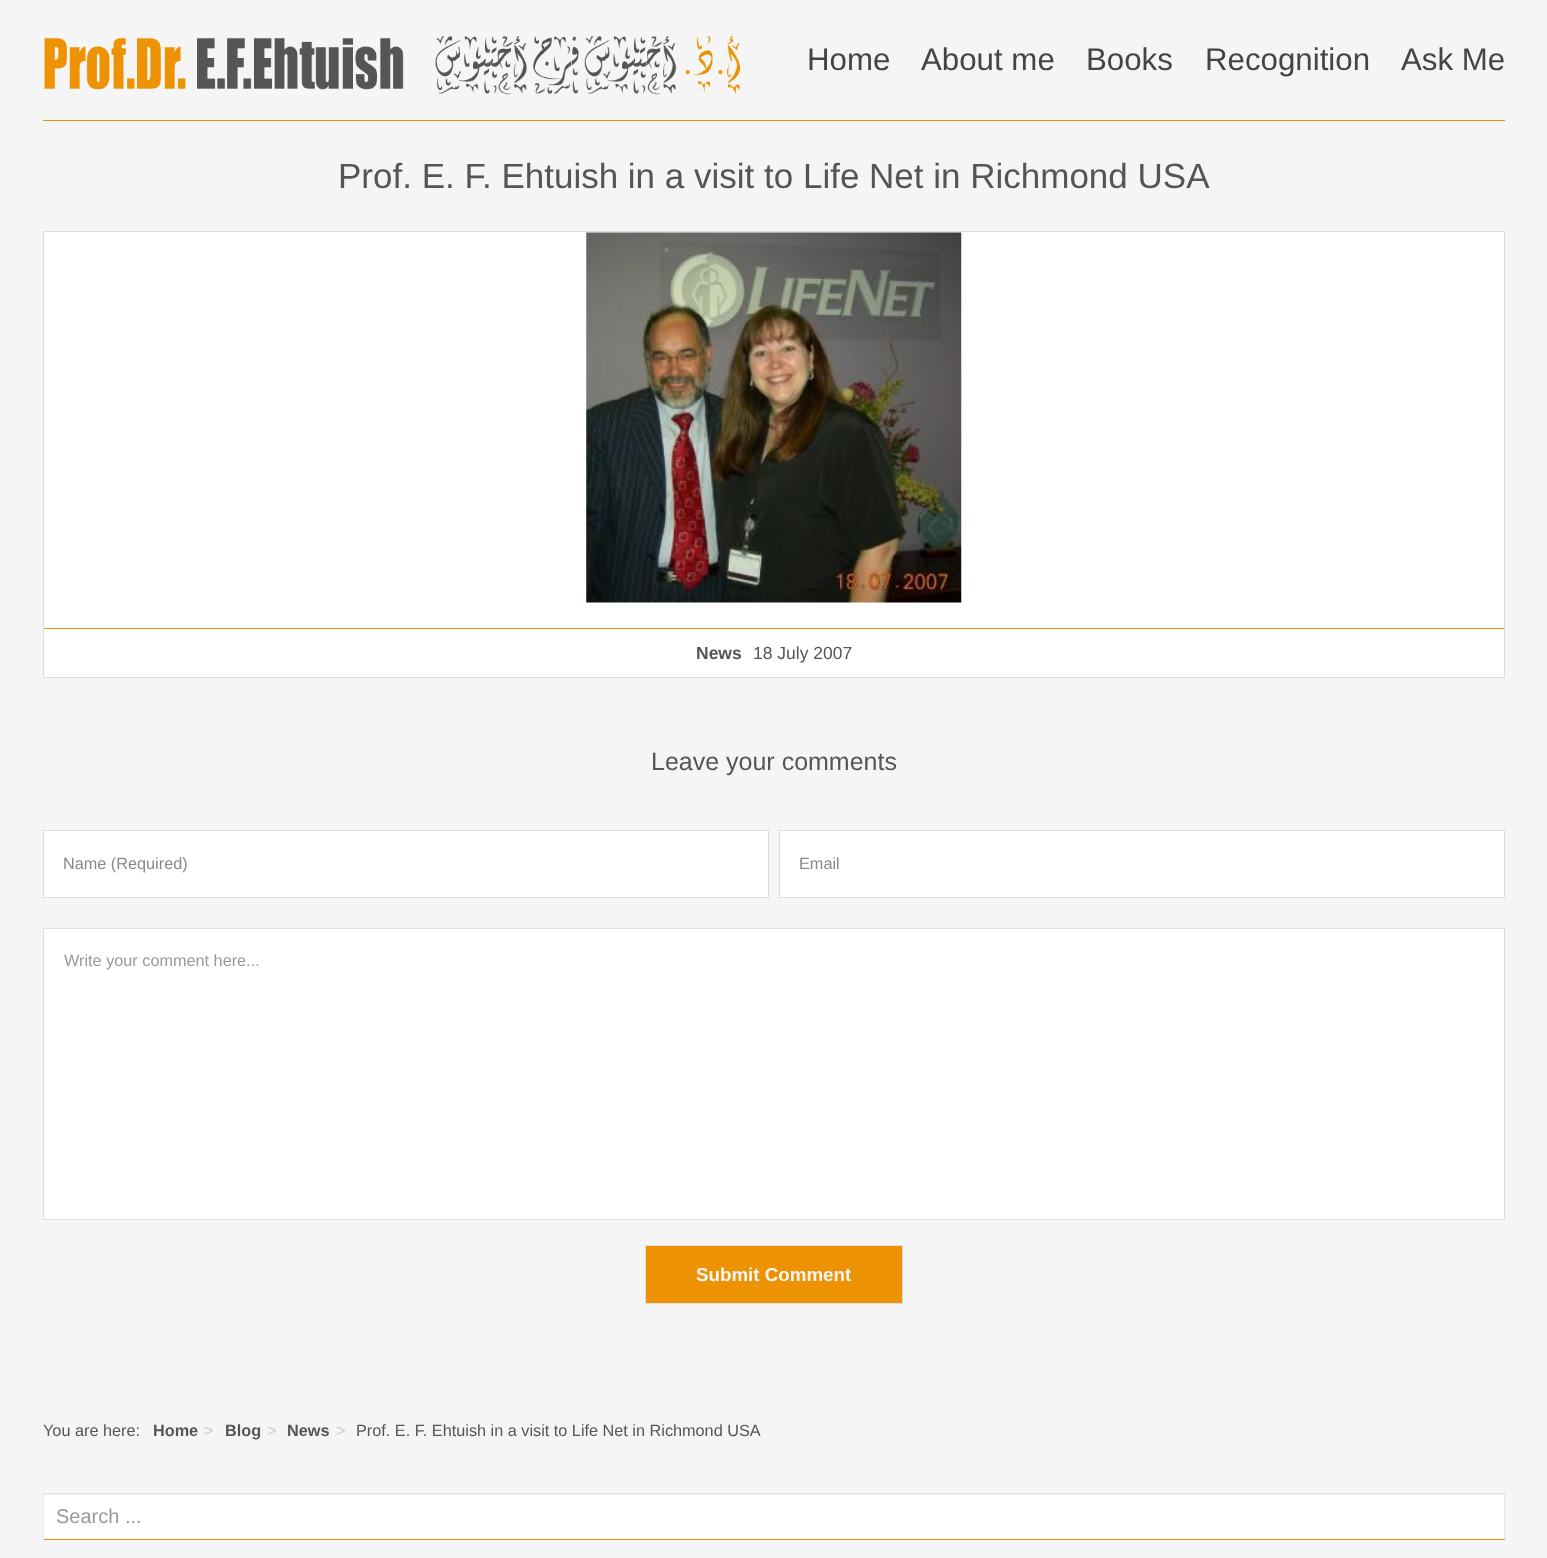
<svg xmlns="http://www.w3.org/2000/svg" width="1547" height="1558" viewBox="0 0 1547 1558">
  <rect width="100%" height="100%" fill="#f5f5f5"/>
  <rect x="43" y="120" width="1462" height="1" fill="#ec9203"/>
  <image x="44" y="35" width="697" height="60" href="img1.png"/>
  <text x="807" y="70" font-family="Liberation Sans" font-size="31.25" fill="#444444">Home</text>
  <text x="921" y="70" font-family="Liberation Sans" font-size="31.25" fill="#444444">About me</text>
  <text x="1086" y="70" font-family="Liberation Sans" font-size="31.25" fill="#444444">Books</text>
  <text x="1205" y="70" font-family="Liberation Sans" font-size="31.25" fill="#444444">Recognition</text>
  <text x="1401" y="70" font-family="Liberation Sans" font-size="31.25" fill="#444444">Ask Me</text>
  <text x="338" y="188" font-family="Liberation Sans" font-size="35" fill="#555555">Prof. E. F. Ehtuish in a visit to Life Net in Richmond USA</text>
  <rect x="43.5" y="231.5" width="1461" height="446" fill="#ffffff" stroke="#dddddd"/>
  <image x="586" y="232" width="376" height="371" href="img2.png"/>
  <rect x="44" y="628" width="1460" height="1" fill="#ec9203"/>
  <text x="696" y="659" font-family="Liberation Sans" font-size="17.5" font-weight="bold" fill="#555555">News</text>
  <text x="753" y="659" font-family="Liberation Sans" font-size="17.5" fill="#555555">18 July 2007</text>
  <text x="651" y="770" font-family="Liberation Sans" font-size="25" fill="#555555">Leave your comments</text>
  <rect x="43.5" y="830.5" width="725" height="67" fill="#ffffff" stroke="#dddddd"/>
  <text x="63" y="869" font-family="Liberation Sans" font-size="16.25" fill="#888888">Name (Required)</text>
  <rect x="779.5" y="830.5" width="725" height="67" fill="#ffffff" stroke="#dddddd"/>
  <text x="799" y="869" font-family="Liberation Sans" font-size="16.25" fill="#888888">Email</text>
  <rect x="43.5" y="928.5" width="1461" height="291" fill="#ffffff" stroke="#dddddd"/>
  <text x="64" y="966" font-family="Liberation Sans" font-size="16.25" fill="#999999">Write your comment here...</text>
  <rect x="645.5" y="1245.5" width="257" height="58" fill="#ec9203" stroke="#dddddd"/>
  <text x="696" y="1281" font-family="Liberation Sans" font-size="18.75" font-weight="bold" fill="#f5f5f5">Submit Comment</text>
  <text x="43" y="1436" font-family="Liberation Sans" font-size="16.25" fill="#555555">You are here:</text>
  <text x="153" y="1436" font-family="Liberation Sans" font-size="16.25" font-weight="bold" fill="#555555">Home</text>
  <text x="204" y="1436" font-family="Liberation Sans" font-size="16.25" fill="#cccccc">&gt;</text>
  <text x="225" y="1436" font-family="Liberation Sans" font-size="16.25" font-weight="bold" fill="#555555">Blog</text>
  <text x="267" y="1436" font-family="Liberation Sans" font-size="16.25" fill="#cccccc">&gt;</text>
  <text x="287" y="1436" font-family="Liberation Sans" font-size="16.25" font-weight="bold" fill="#555555">News</text>
  <text x="336" y="1436" font-family="Liberation Sans" font-size="16.25" fill="#cccccc">&gt;</text>
  <text x="356" y="1436" font-family="Liberation Sans" font-size="16.25" fill="#555555">Prof. E. F. Ehtuish in a visit to Life Net in Richmond USA</text>
  <rect x="44" y="1495" width="1460" height="44" fill="#ffffff"/>
  <rect x="44" y="1494" width="1460" height="1" fill="#ececec"/>
  <rect x="43" y="1493" width="1462" height="1" fill="#e5e5e5"/>
  <rect x="1504" y="1493" width="1" height="47" fill="#e5e5e5"/>
  <rect x="43" y="1539" width="1462" height="1" fill="#ec9203"/>
  <rect x="43" y="1493" width="1" height="47" fill="#e5e5e5"/>
  <text x="56" y="1523" font-family="Liberation Sans" font-size="20" fill="#999999">Search ...</text>
</svg>
